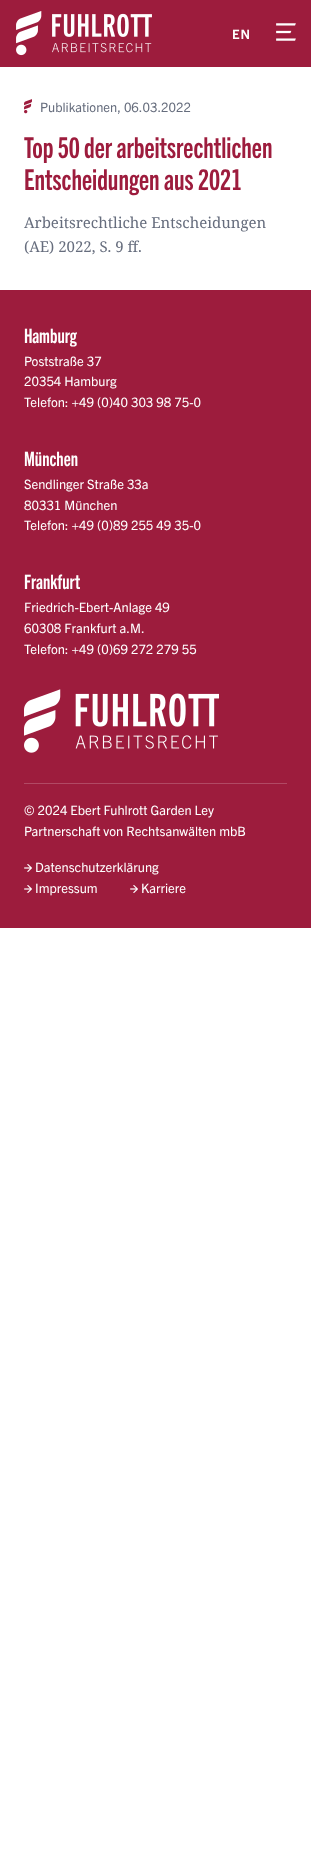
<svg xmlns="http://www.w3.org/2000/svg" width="311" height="1874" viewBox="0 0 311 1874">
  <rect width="100%" height="100%" fill="#ffffff"/>
  <rect x="0" y="0" width="311" height="67" fill="#9d1c3d"/>
  <image x="16" y="11" width="136" height="45" href="img1.png"/>
  <text x="232" y="39" font-family="'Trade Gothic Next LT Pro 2'" font-size="13" font-weight="bold" letter-spacing="1" fill="#ffffff">EN</text>
  <image x="276" y="23" width="20" height="18" href="img2.png"/>
  <image x="24" y="99" width="8" height="15" href="img3.png"/>
  <text x="40" y="112" font-family="Trade Gothic" font-size="13" fill="#666d7d">Publikationen, 06.03.2022</text>
  <text x="24" y="158" font-family="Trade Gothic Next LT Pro" font-size="28.75" font-weight="bold" fill="#9d1c3d">Top 50 der arbeitsrechtlichen</text>
  <text x="24" y="190" font-family="Trade Gothic Next LT Pro" font-size="28.75" font-weight="bold" fill="#9d1c3d">Entscheidungen aus 2021</text>
  <text x="24" y="228" font-family="Noto Serif" font-size="15" fill="#666d7d">Arbeitsrechtliche Entscheidungen</text>
  <text x="24" y="252" font-family="Noto Serif" font-size="15" fill="#666d7d">(AE) 2022, S. 9 ff.</text>
  <rect x="0" y="290" width="311" height="638" fill="#9d1c3d"/>
  <text x="24" y="343" font-family="Trade Gothic Next LT Pro" font-size="20" font-weight="bold" fill="#ffffff">Hamburg</text>
  <text x="24" y="366" font-family="Trade Gothic" font-size="13" fill="#ffffff">Poststraße 37</text>
  <text x="24" y="386" font-family="Trade Gothic" font-size="13" fill="#ffffff">20354 Hamburg</text>
  <text x="24" y="407" font-family="Trade Gothic" font-size="13" fill="#ffffff">Telefon: +49 (0)40 303 98 75-0</text>
  <text x="24" y="466" font-family="Trade Gothic Next LT Pro" font-size="20" font-weight="bold" fill="#ffffff">München</text>
  <text x="24" y="489" font-family="Trade Gothic" font-size="13" fill="#ffffff">Sendlinger Straße 33a</text>
  <text x="24" y="510" font-family="Trade Gothic" font-size="13" fill="#ffffff">80331 München</text>
  <text x="24" y="530" font-family="Trade Gothic" font-size="13" fill="#ffffff">Telefon: +49 (0)89 255 49 35-0</text>
  <text x="24" y="589" font-family="Trade Gothic Next LT Pro" font-size="20" font-weight="bold" fill="#ffffff">Frankfurt</text>
  <text x="24" y="612" font-family="Trade Gothic" font-size="13" fill="#ffffff">Friedrich-Ebert-Anlage 49</text>
  <text x="24" y="633" font-family="Trade Gothic" font-size="13" fill="#ffffff">60308 Frankfurt a.M.</text>
  <text x="24" y="654" font-family="Trade Gothic" font-size="13" fill="#ffffff">Telefon: +49 (0)69 272 279 55</text>
  <image x="24" y="689" width="195" height="64" href="img4.png"/>
  <rect x="24" y="783" width="263" height="1" fill="#b14964"/>
  <text x="24" y="815" font-family="Trade Gothic" font-size="13" fill="#ffffff">© 2024 Ebert Fuhlrott Garden Ley</text>
  <text x="24" y="836" font-family="Trade Gothic" font-size="13" fill="#ffffff">Partnerschaft von Rechtsanwälten mbB</text>
  <image x="24" y="864" width="8" height="8" href="img5.png"/>
  <text x="35" y="872" font-family="Trade Gothic" font-size="13" fill="#ffffff">Datenschutzerklärung</text>
  <image x="24" y="885" width="8" height="8" href="img5.png"/>
  <text x="35" y="893" font-family="Trade Gothic" font-size="13" fill="#ffffff">Impressum</text>
  <image x="130" y="885" width="8" height="8" href="img5.png"/>
  <text x="141" y="893" font-family="Trade Gothic" font-size="13" fill="#ffffff">Karriere</text>
</svg>
